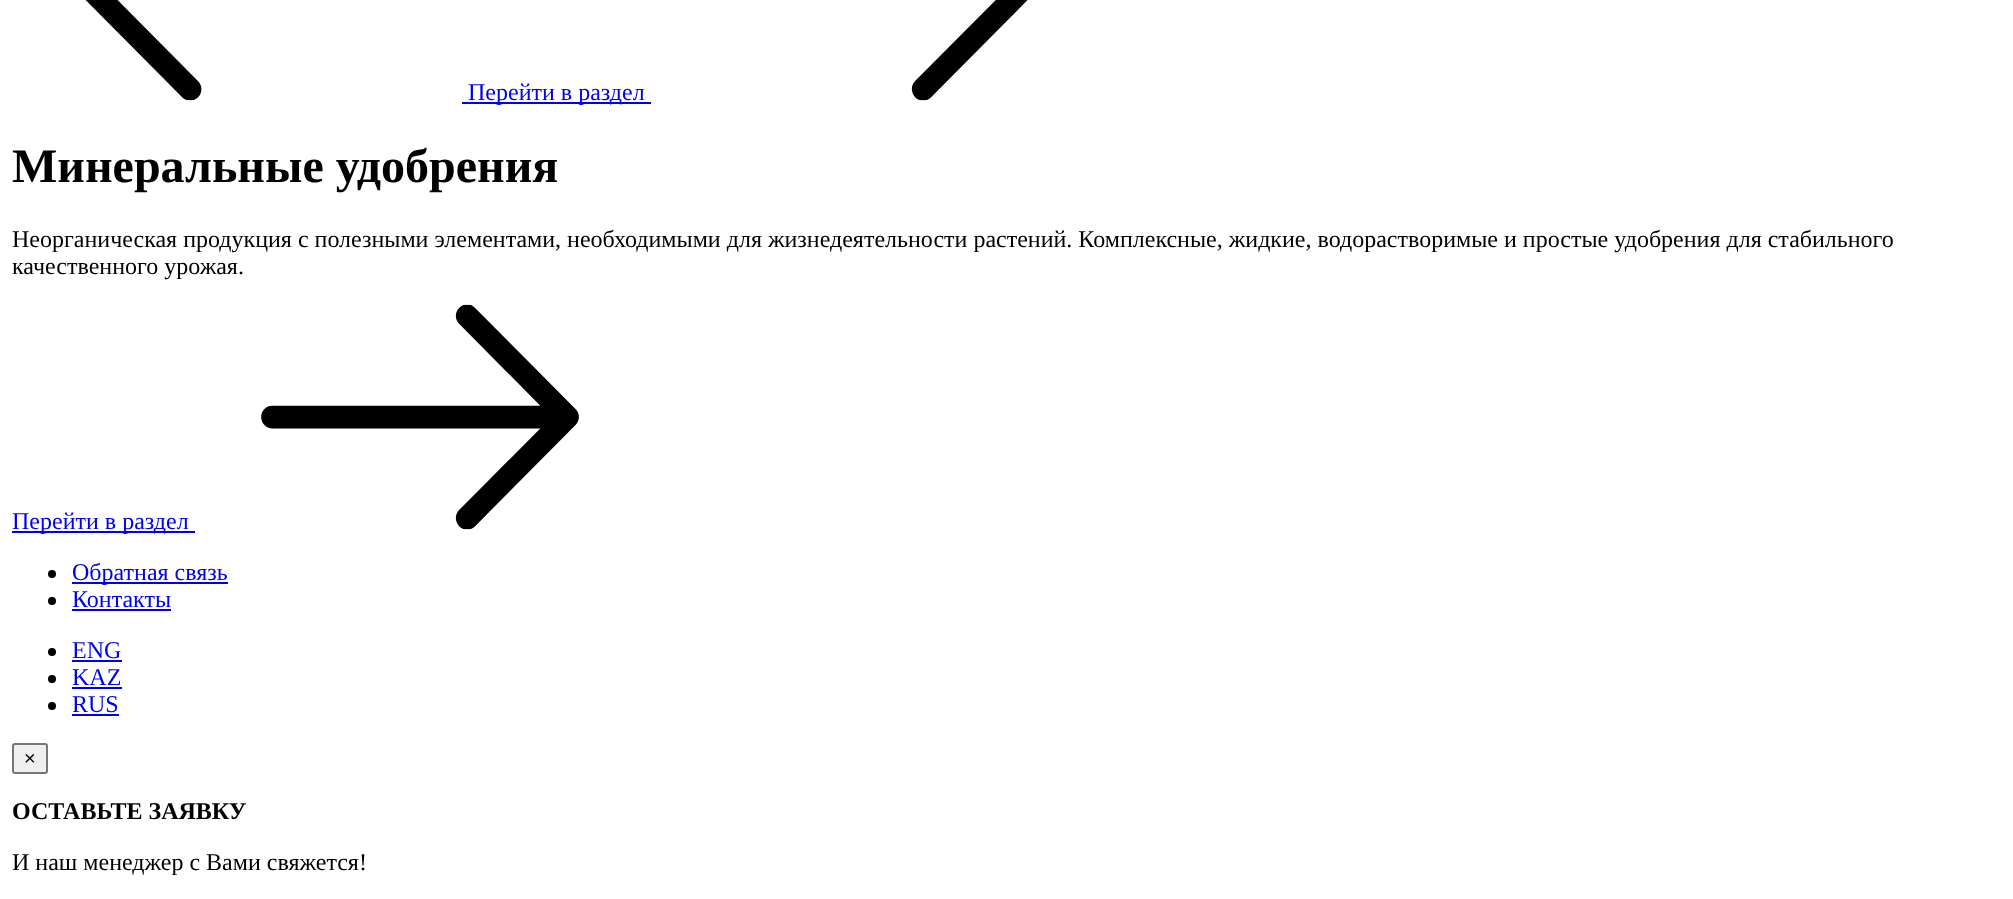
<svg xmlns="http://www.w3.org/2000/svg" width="2013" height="899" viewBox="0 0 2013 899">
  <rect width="100%" height="100%" fill="#ffffff"/>
  <image x="85" y="0" width="117" height="101" href="img1.png"/>
  <rect x="462" y="102" width="189" height="2" fill="#0000ee"/>
  <text x="468" y="100" font-family="Liberation Serif" font-size="24" fill="#0000ee">Перейти в раздел</text>
  <image x="911" y="0" width="117" height="101" href="img2.png"/>
  <text x="12" y="182" font-family="Liberation Serif" font-size="48" font-weight="bold" fill="#000000">Минеральные удобрения</text>
  <text x="12" y="247" font-family="Liberation Serif" font-size="24" fill="#000000">Неорганическая продукция с полезными элементами, необходимыми для жизнедеятельности растений. Комплексные, жидкие, водорастворимые и простые удобрения для стабильного</text>
  <text x="12" y="274" font-family="Liberation Serif" font-size="24" fill="#000000">качественного урожая.</text>
  <rect x="12" y="531" width="183" height="2" fill="#0000ee"/>
  <text x="12" y="529" font-family="Liberation Serif" font-size="24" fill="#0000ee">Перейти в раздел</text>
  <image x="261" y="304" width="318" height="226" href="img3.png"/>
  <circle cx="52" cy="574" r="4" fill="#000000"/>
  <rect x="72" y="582" width="156" height="2" fill="#0000ee"/>
  <text x="72" y="580" font-family="Liberation Serif" font-size="24" fill="#0000ee">Обратная связь</text>
  <circle cx="52" cy="601" r="4" fill="#000000"/>
  <text x="72" y="607" font-family="Liberation Serif" font-size="24" fill="#0000ee">Контакты</text>
  <rect x="72" y="609" width="99" height="2" fill="#0000ee"/>
  <circle cx="52" cy="652" r="4" fill="#000000"/>
  <text x="72" y="658" font-family="Liberation Serif" font-size="24" fill="#0000ee">ENG</text>
  <rect x="72" y="660" width="50" height="2" fill="#0000ee"/>
  <circle cx="52" cy="679" r="4" fill="#000000"/>
  <text x="72" y="685" font-family="Liberation Serif" font-size="24" fill="#0000ee">KAZ</text>
  <rect x="72" y="687" width="50" height="2" fill="#0000ee"/>
  <circle cx="52" cy="706" r="4" fill="#000000"/>
  <text x="72" y="712" font-family="Liberation Serif" font-size="24" fill="#0000ee">RUS</text>
  <rect x="72" y="714" width="47" height="2" fill="#0000ee"/>
  <rect x="13" y="744" width="34" height="29" rx="2" fill="#efefef" stroke="#767676" stroke-width="2"/>
  <text x="24" y="765" font-family="Liberation Sans" font-size="20" fill="#000000">×</text>
  <text x="12" y="819" font-family="Liberation Serif" font-size="24" font-weight="bold" fill="#000000">ОСТАВЬТЕ ЗАЯВКУ</text>
  <text x="12" y="870" font-family="Liberation Serif" font-size="24" fill="#000000">И наш менеджер с Вами свяжется!</text>
</svg>
